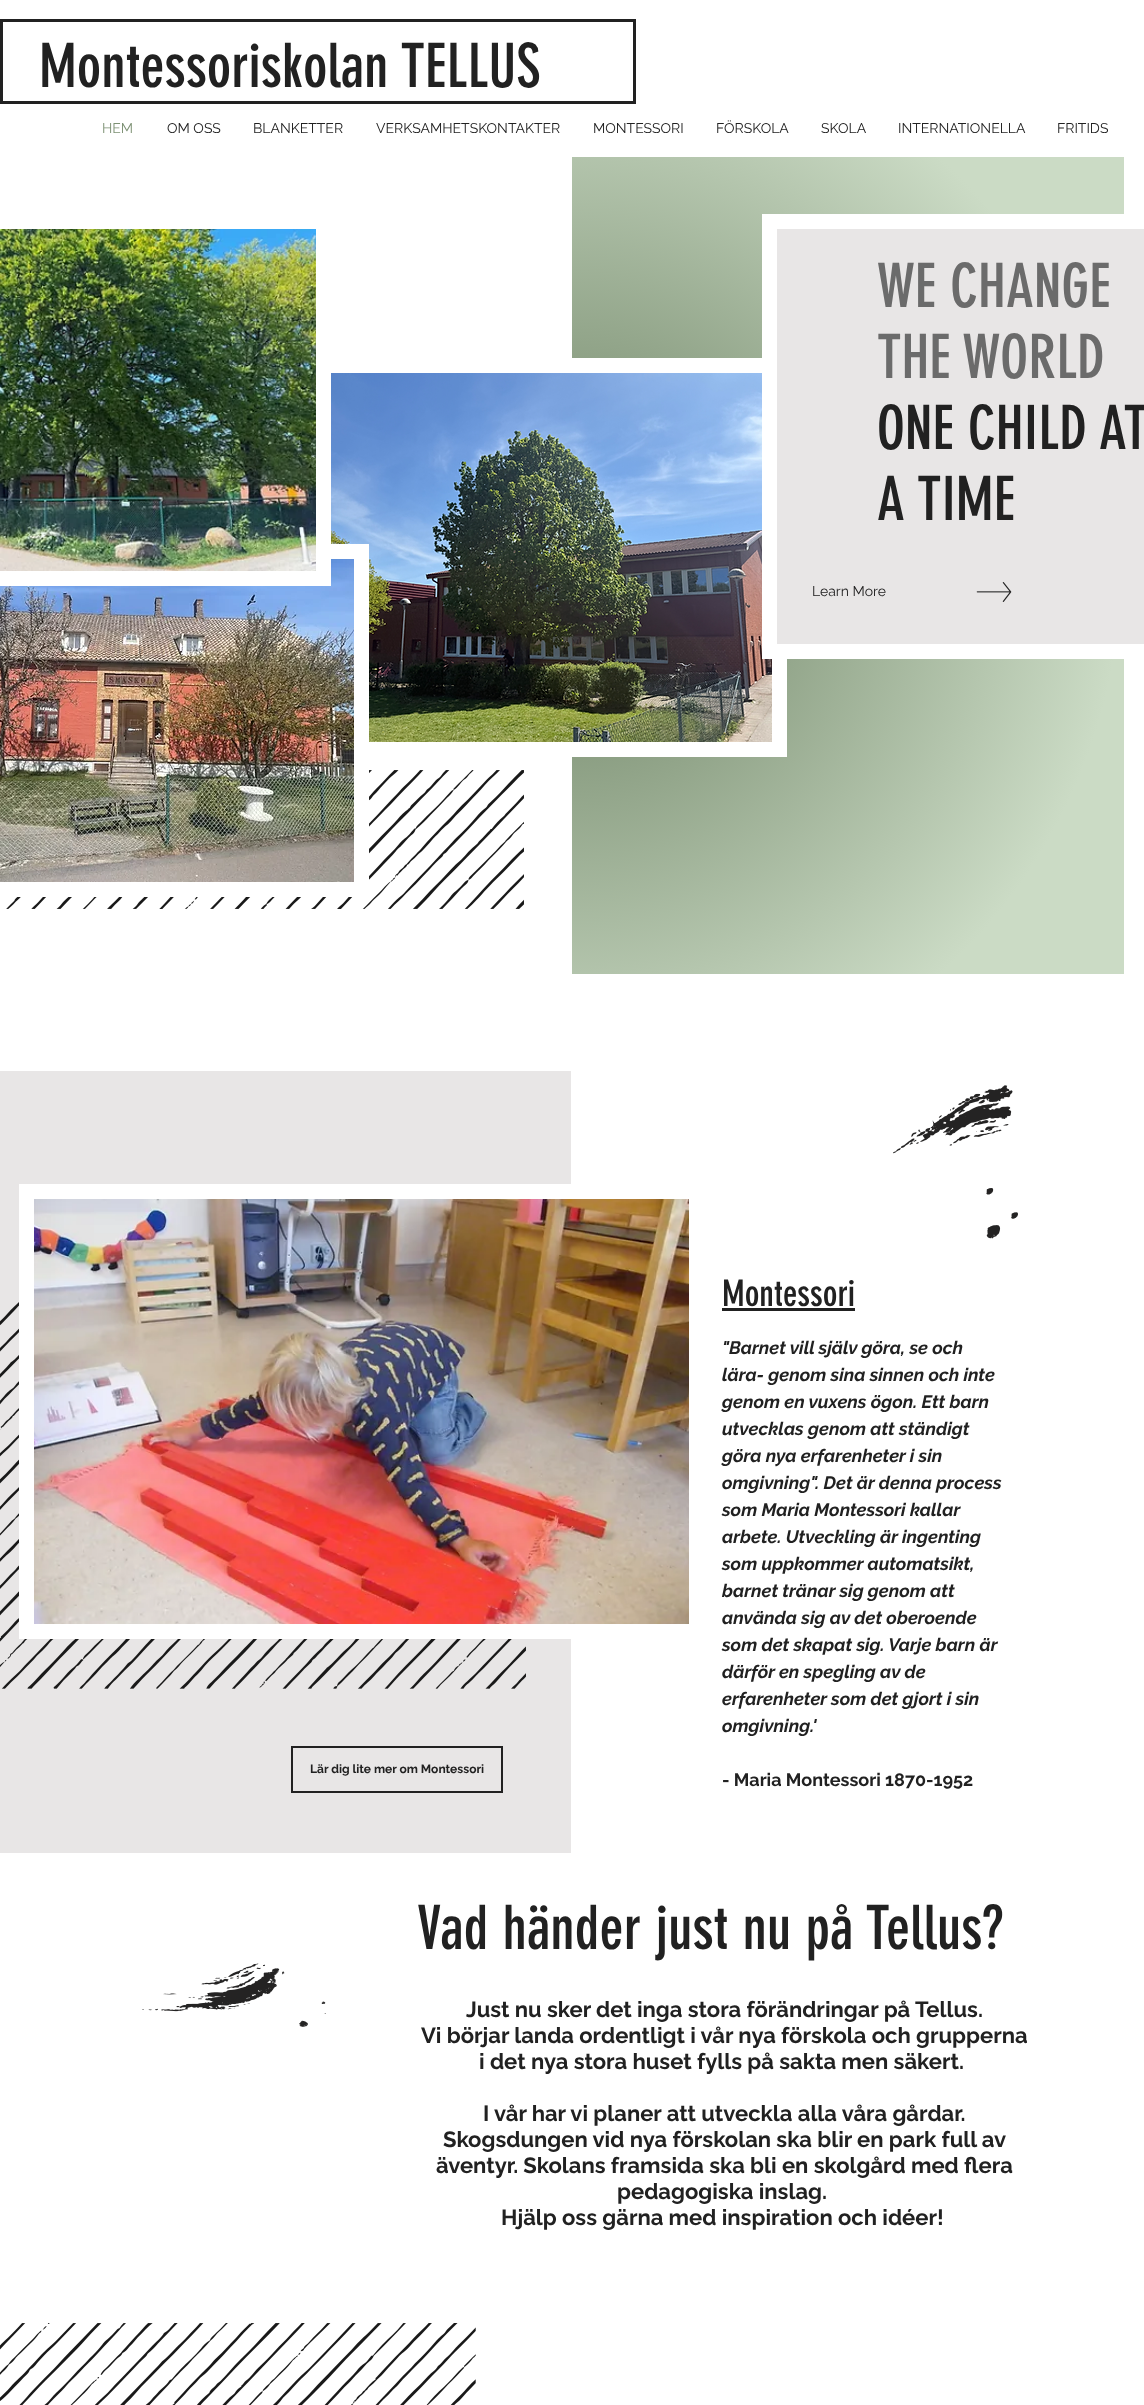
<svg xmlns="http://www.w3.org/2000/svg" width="1144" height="2405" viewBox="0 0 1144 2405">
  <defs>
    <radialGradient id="g1" gradientUnits="userSpaceOnUse" cx="572" cy="566" r="687"><stop offset="0.15" stop-color="#7d9174"/><stop offset="0.8" stop-color="#cbdbc5"/></radialGradient>
  </defs>
  <rect width="100%" height="100%" fill="#ffffff"/>
  <rect x="1.5" y="20.5" width="633" height="82" fill="none" stroke="#212121" stroke-width="3"/>
  <text x="39" y="87" font-family="'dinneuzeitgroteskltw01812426'" font-size="60" fill="#212121">Montessoriskolan TELLUS</text>
  <text x="102" y="133" font-family="Raleway" font-size="14" fill="#7d9174">HEM</text>
  <text x="167" y="133" font-family="Raleway" font-size="14" fill="#212121">OM OSS</text>
  <text x="253" y="133" font-family="Raleway" font-size="14" fill="#212121">BLANKETTER</text>
  <text x="376" y="133" font-family="Raleway" font-size="14" fill="#212121">VERKSAMHETSKONTAKTER</text>
  <text x="593" y="133" font-family="Raleway" font-size="14" fill="#212121">MONTESSORI</text>
  <text x="716" y="133" font-family="Raleway" font-size="14" fill="#212121">FÖRSKOLA</text>
  <text x="821" y="133" font-family="Raleway" font-size="14" fill="#212121">SKOLA</text>
  <text x="898" y="133" font-family="Raleway" font-size="14" fill="#212121">INTERNATIONELLA</text>
  <text x="1057" y="133" font-family="Raleway" font-size="14" fill="#212121">FRITIDS</text>
  <rect x="572" y="157" width="552" height="817" fill="url(#g1)"/>
  <rect x="572" y="358" width="215" height="399" fill="#ffffff"/>
  <image x="331" y="373" width="441" height="369" href="img2.png"/>
  <image x="6" y="770" width="518" height="139" href="img4.png"/>
  <rect x="6" y="544" width="363" height="353" fill="#ffffff"/>
  <image x="0" y="559" width="354" height="323" href="img3.png"/>
  <rect x="0" y="559" width="331" height="27" fill="#ffffff"/>
  <image x="0" y="229" width="316" height="342" href="img1.png"/>
  <rect x="769.5" y="221.5" width="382" height="430" fill="#e8e6e6" stroke="#ffffff" stroke-width="15"/>
  <text x="877" y="307" font-family="'dinneuzeitgroteskltw01812426'" font-size="60" fill="#6b6b6b">WE CHANGE</text>
  <text x="877" y="378" font-family="'dinneuzeitgroteskltw01812426'" font-size="60" fill="#6b6b6b">THE WORLD</text>
  <text x="877" y="449" font-family="'dinneuzeitgroteskltw01812426'" font-size="60" fill="#212121">ONE CHILD AT</text>
  <text x="877" y="520" font-family="'dinneuzeitgroteskltw01812426'" font-size="60" fill="#212121">A TIME</text>
  <text x="812" y="596" font-family="Raleway" font-size="14" fill="#212121">Learn More</text>
  <image x="976" y="582" width="36" height="20" href="img5.png"/>
  <image x="893" y="1085" width="125" height="154" href="img6.png"/>
  <text x="722" y="1306" font-family="'dinneuzeitgroteskltw01812426'" font-size="36" fill="#212121">Montessori</text>
  <rect x="722" y="1308" width="133" height="3" fill="#212121"/>
  <rect x="0" y="1071" width="571" height="782" fill="#e8e6e6"/>
  <image x="0" y="1302" width="526" height="387" href="img8.png"/>
  <rect x="19" y="1184" width="552" height="455" fill="#ffffff"/>
  <image x="34" y="1199" width="655" height="425" href="img7.png"/>
  <rect x="292" y="1747" width="210" height="45" fill="none" stroke="#212121" stroke-width="2"/>
  <text x="310" y="1773" font-family="Raleway" font-size="12" font-weight="bold" fill="#212121">Lär dig lite mer om Montessori</text>
  <text x="722" y="1354" font-family="Raleway" font-size="18" font-weight="bold" font-style="italic" fill="#212121">"Barnet vill själv göra, se och</text>
  <text x="722" y="1381" font-family="Raleway" font-size="18" font-weight="bold" font-style="italic" fill="#212121">lära- genom sina sinnen och inte</text>
  <text x="722" y="1408" font-family="Raleway" font-size="18" font-weight="bold" font-style="italic" fill="#212121">genom en vuxens ögon. Ett barn</text>
  <text x="722" y="1435" font-family="Raleway" font-size="18" font-weight="bold" font-style="italic" fill="#212121">utvecklas genom att ständigt</text>
  <text x="722" y="1462" font-family="Raleway" font-size="18" font-weight="bold" font-style="italic" fill="#212121">göra nya erfarenheter i sin</text>
  <text x="722" y="1489" font-family="Raleway" font-size="18" font-weight="bold" font-style="italic" fill="#212121">omgivning". Det är denna process</text>
  <text x="722" y="1516" font-family="Raleway" font-size="18" font-weight="bold" font-style="italic" fill="#212121">som Maria Montessori kallar</text>
  <text x="722" y="1543" font-family="Raleway" font-size="18" font-weight="bold" font-style="italic" fill="#212121">arbete. Utveckling är ingenting</text>
  <text x="722" y="1570" font-family="Raleway" font-size="18" font-weight="bold" font-style="italic" fill="#212121">som uppkommer automatsikt,</text>
  <text x="722" y="1597" font-family="Raleway" font-size="18" font-weight="bold" font-style="italic" fill="#212121">barnet tränar sig genom att</text>
  <text x="722" y="1624" font-family="Raleway" font-size="18" font-weight="bold" font-style="italic" fill="#212121">använda sig av det oberoende</text>
  <text x="722" y="1651" font-family="Raleway" font-size="18" font-weight="bold" font-style="italic" fill="#212121">som det skapat sig. Varje barn är</text>
  <text x="722" y="1678" font-family="Raleway" font-size="18" font-weight="bold" font-style="italic" fill="#212121">därför en spegling av de</text>
  <text x="722" y="1705" font-family="Raleway" font-size="18" font-weight="bold" font-style="italic" fill="#212121">erfarenheter som det gjort i sin</text>
  <text x="722" y="1732" font-family="Raleway" font-size="18" font-weight="bold" font-style="italic" fill="#212121">omgivning.'</text>
  <text x="722" y="1786" font-family="Raleway" font-size="18" font-weight="bold" fill="#212121">- Maria Montessori 1870-1952</text>
  <image x="142" y="1963" width="184" height="64" href="img9.png"/>
  <image x="0" y="2323" width="476" height="82" href="img10.png"/>
  <text x="417" y="1949" font-family="'dinneuzeitgroteskltw01812426'" font-size="60" fill="#212121">Vad händer just nu på Tellus?</text>
  <text x="466" y="2017" font-family="Raleway" font-size="22" font-weight="bold" fill="#212121">Just nu sker det inga stora förändringar på Tellus.</text>
  <text x="421" y="2043" font-family="Raleway" font-size="22" font-weight="bold" fill="#212121">Vi börjar landa ordentligt i vår nya förskola och grupperna</text>
  <text x="479" y="2069" font-family="Raleway" font-size="22" font-weight="bold" fill="#212121">i det nya stora huset fylls på sakta men säkert.</text>
  <text x="483" y="2121" font-family="Raleway" font-size="22" font-weight="bold" fill="#212121">I vår har vi planer att utveckla alla våra gårdar.</text>
  <text x="443" y="2147" font-family="Raleway" font-size="22" font-weight="bold" fill="#212121">Skogsdungen vid nya förskolan ska blir en park full av</text>
  <text x="436" y="2173" font-family="Raleway" font-size="22" font-weight="bold" fill="#212121">äventyr. Skolans framsida ska bli en skolgård med flera</text>
  <text x="617" y="2199" font-family="Raleway" font-size="22" font-weight="bold" fill="#212121">pedagogiska inslag.</text>
  <text x="501" y="2225" font-family="Raleway" font-size="22" font-weight="bold" fill="#212121">Hjälp oss gärna med inspiration och idéer!</text>
</svg>
